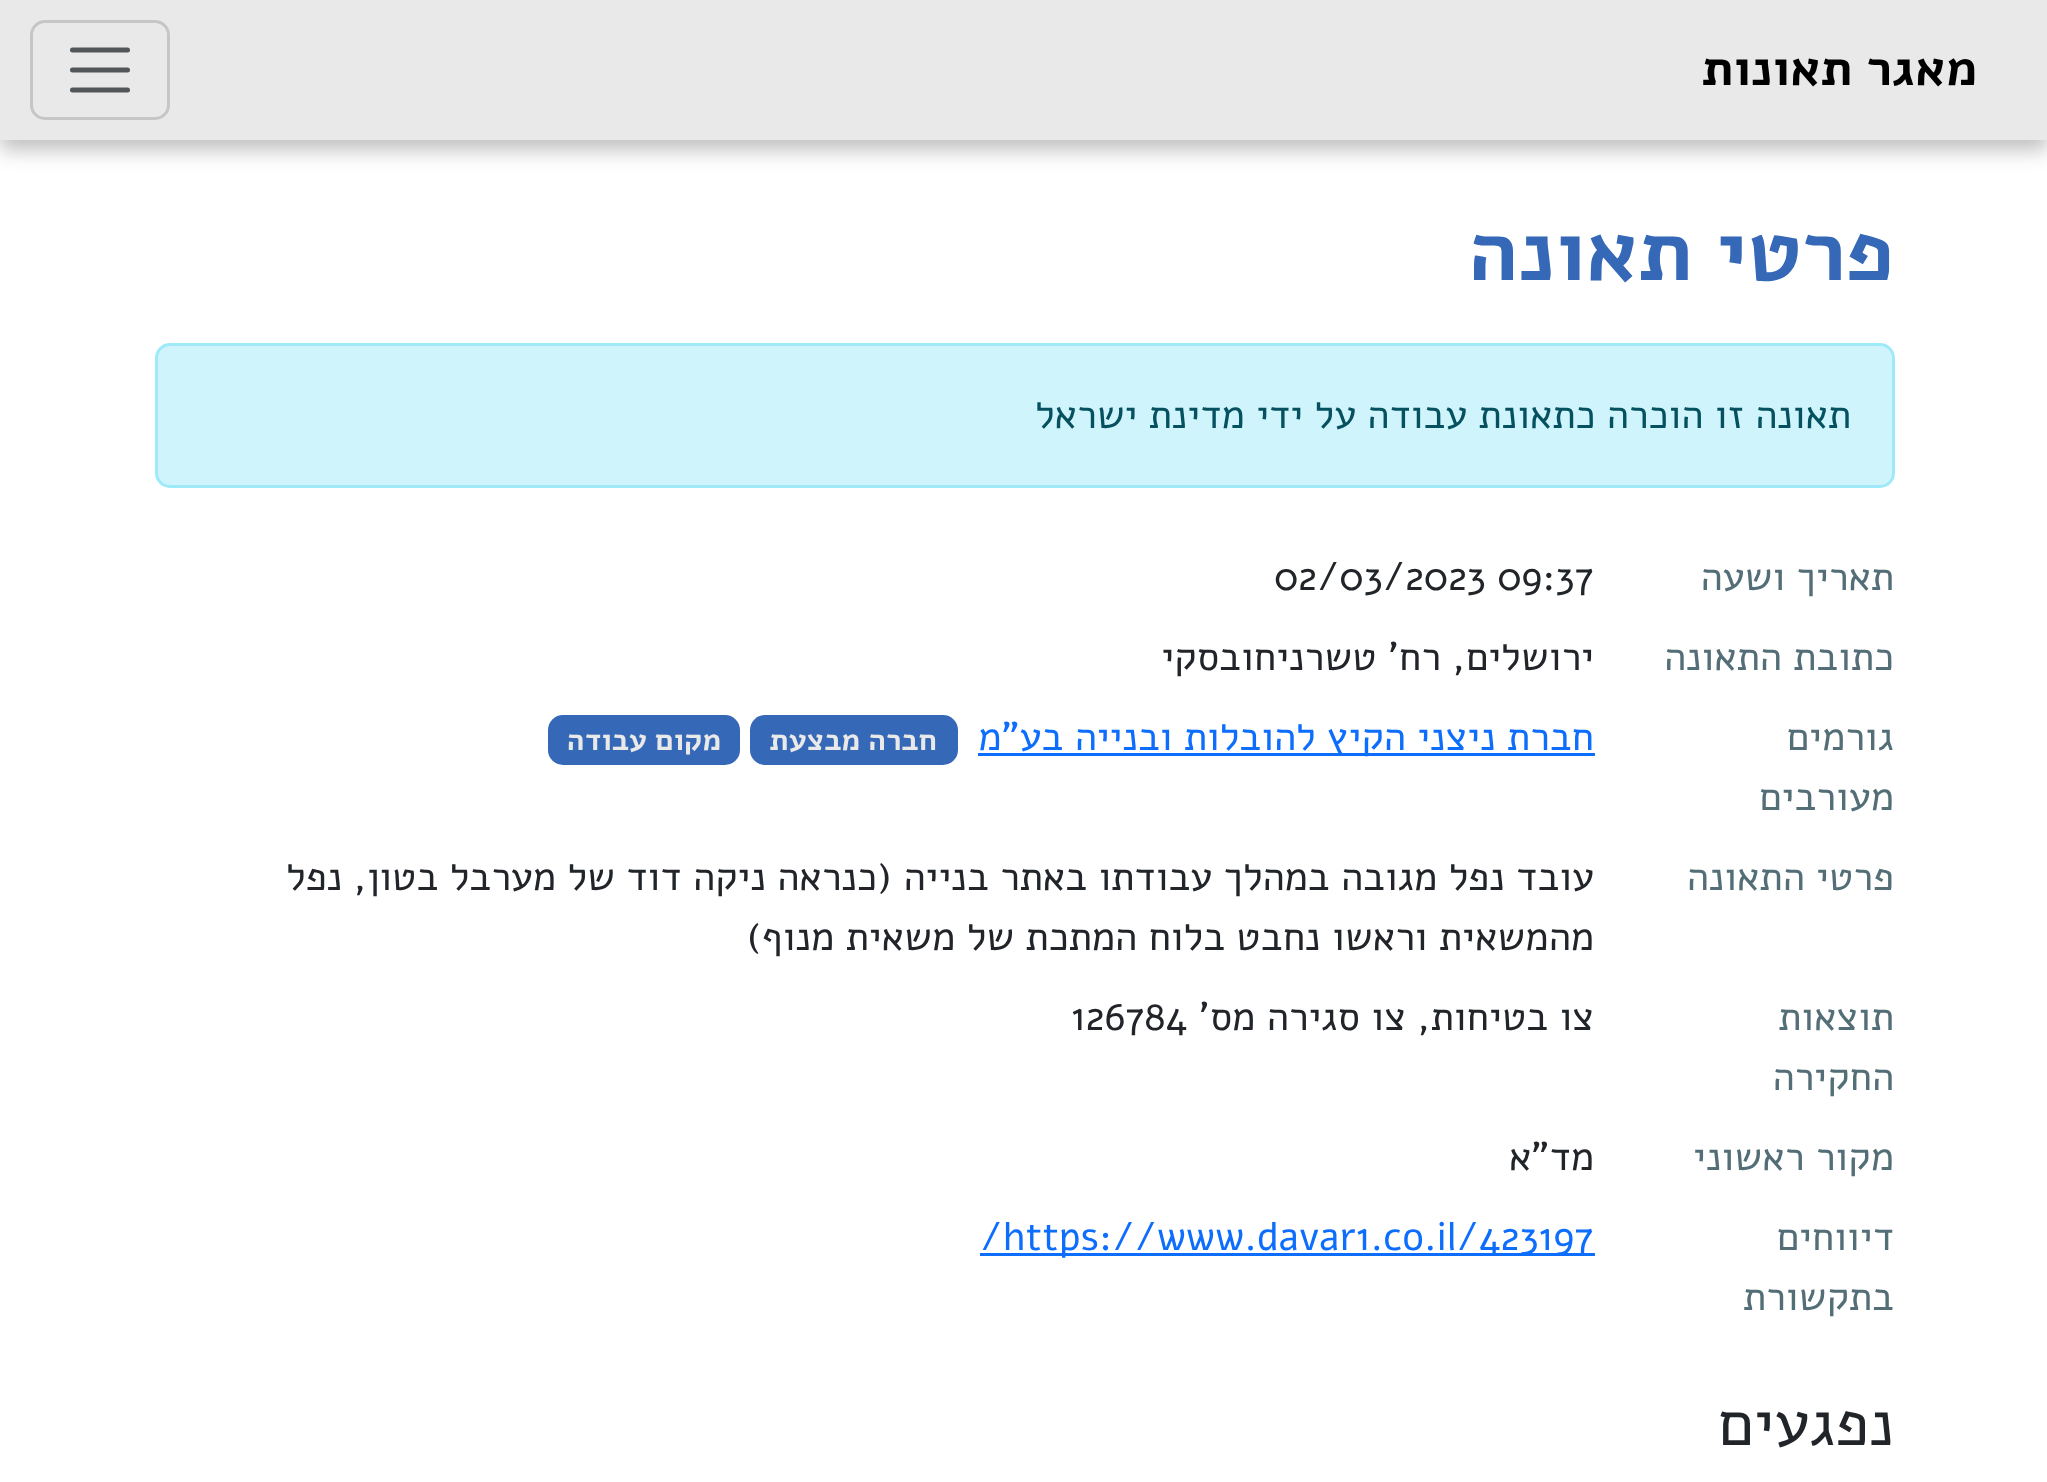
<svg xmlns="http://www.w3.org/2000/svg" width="2047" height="1482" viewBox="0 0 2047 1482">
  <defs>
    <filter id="blur1" x="-50%" y="-200%" width="200%" height="500%"><feGaussianBlur stdDeviation="10"/></filter>
  </defs>
  <rect width="100%" height="100%" fill="#ffffff"/>
  <rect x="0" y="10" width="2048" height="140" fill="#000000" fill-opacity="0.25" filter="url(#blur1)"/>
  <rect x="0" y="0" width="2047" height="140" fill="#e9e9e9"/>
  <text x="1977" y="85" font-family="Alef" font-size="50" font-weight="bold" direction="rtl" fill="#000000">מאגר תאונות</text>
  <rect x="31.5" y="21.5" width="137" height="97" rx="13.5" fill="none" stroke="#c6c6c6" stroke-width="3"/>
  <path d="M72.5 50H127.5M72.5 70H127.5M72.5 90H127.5" fill="none" stroke="#535659" stroke-width="5" stroke-linecap="round"/>
  <text x="1894" y="280" font-family="Alef" font-size="85.75" font-weight="bold" direction="rtl" fill="#3568b6">פרטי תאונה</text>
  <rect x="156.5" y="344.5" width="1737" height="142" rx="13.5" fill="#cff4fc" stroke="#9eeaf9" stroke-width="3"/>
  <text x="1851" y="428" font-family="Alef" font-size="40" direction="rtl" fill="#055160">תאונה זו הוכרה כתאונת עבודה על ידי מדינת ישראל</text>
  <text x="1894" y="590" font-family="Alef" font-size="40" direction="rtl" fill="#536e77">תאריך ושעה</text>
  <text x="1274" y="590" font-family="Alef" font-size="40" fill="#212529">02/03/2023 09:37</text>
  <text x="1894" y="670" font-family="Alef" font-size="40" direction="rtl" fill="#536e77">כתובת התאונה</text>
  <text x="1594" y="670" font-family="Alef" font-size="40" direction="rtl" fill="#212529">ירושלים, רח' טשרניחובסקי</text>
  <text x="1894" y="750" font-family="Alef" font-size="40" direction="rtl" fill="#536e77">גורמים</text>
  <text x="1894" y="810" font-family="Alef" font-size="40" direction="rtl" fill="#536e77">מעורבים</text>
  <rect x="978" y="753" width="617" height="3" fill="#0d6efd"/>
  <text x="1594" y="750" font-family="Alef" font-size="40" direction="rtl" fill="#0d6efd">חברת ניצני הקיץ להובלות ובנייה בע"מ</text>
  <rect x="750" y="715" width="208" height="50" rx="15" fill="#3568b6"/>
  <text x="937" y="750" font-family="Alef" font-size="30" font-weight="bold" direction="rtl" fill="#e9e9e9">חברה מבצעת</text>
  <rect x="548" y="715" width="192" height="50" rx="15" fill="#3568b6"/>
  <text x="721" y="750" font-family="Alef" font-size="30" font-weight="bold" direction="rtl" fill="#e9e9e9">מקום עבודה</text>
  <text x="1894" y="890" font-family="Alef" font-size="40" direction="rtl" fill="#536e77">פרטי התאונה</text>
  <text x="1594" y="890" font-family="Alef" font-size="40" direction="rtl" fill="#212529">עובד נפל מגובה במהלך עבודתו באתר בנייה (כנראה ניקה דוד של מערבל בטון, נפל</text>
  <text x="1594" y="950" font-family="Alef" font-size="40" direction="rtl" fill="#212529">מהמשאית וראשו נחבט בלוח המתכת של משאית מנוף)</text>
  <text x="1894" y="1030" font-family="Alef" font-size="40" direction="rtl" fill="#536e77">תוצאות</text>
  <text x="1894" y="1090" font-family="Alef" font-size="40" direction="rtl" fill="#536e77">החקירה</text>
  <text x="1594" y="1030" font-family="Alef" font-size="40" direction="rtl" fill="#212529">צו בטיחות, צו סגירה מס'</text>
  <text x="1071" y="1030" font-family="Alef" font-size="40" fill="#212529">126784</text>
  <text x="1894" y="1170" font-family="Alef" font-size="40" direction="rtl" fill="#536e77">מקור ראשוני</text>
  <text x="1594" y="1170" font-family="Alef" font-size="40" direction="rtl" fill="#212529">מד"א</text>
  <text x="1894" y="1250" font-family="Alef" font-size="40" direction="rtl" fill="#536e77">דיווחים</text>
  <text x="1894" y="1310" font-family="Alef" font-size="40" direction="rtl" fill="#536e77">בתקשורת</text>
  <rect x="980" y="1253" width="615" height="3" fill="#0d6efd"/>
  <text x="980" y="1250" font-family="Alef" font-size="40" fill="#0d6efd">/https://www.davar1.co.il/423197</text>
  <text x="1894" y="1445" font-family="Alef" font-size="64" direction="rtl" fill="#212529">נפגעים</text>
</svg>
